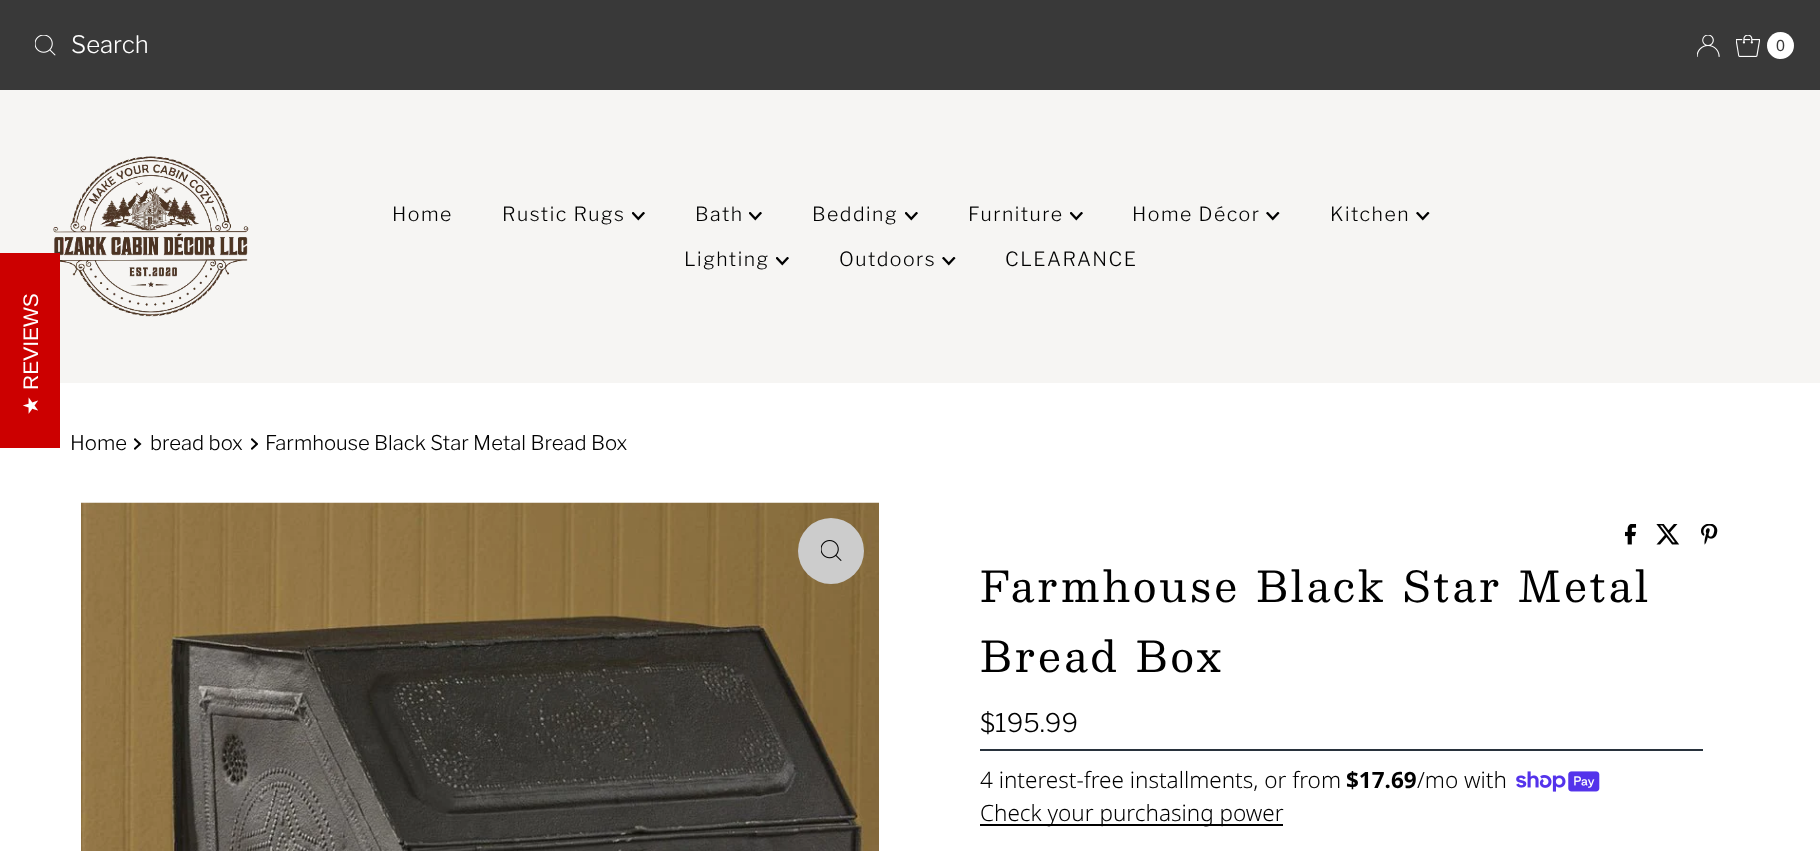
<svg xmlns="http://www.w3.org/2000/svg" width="1820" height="851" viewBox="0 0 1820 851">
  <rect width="100%" height="100%" fill="#ffffff"/>
  <rect x="0" y="90" width="1820" height="293" fill="#f6f5f3"/>
  <image x="53" y="156" width="196" height="161" href="img4.png"/>
  <rect x="0" y="253" width="60" height="195" fill="#cc0000"/>
  <text x="38" y="390" transform="rotate(-90 38 390)" font-family="Liberation Sans" font-size="21" fill="#ffffff">REVIEWS</text>
  <text x="38" y="415" transform="rotate(-90 38 415)" font-family="DejaVu Sans" font-size="21" fill="#ffffff">★</text>
  <rect x="0" y="0" width="1820" height="90" fill="#393939"/>
  <image x="35" y="35" width="21" height="21" href="img1.png"/>
  <text x="71" y="53" font-family="Libre Franklin" font-size="24" font-weight="300" fill="#ffffff">Search</text>
  <image x="1697" y="35" width="23" height="22" href="img2.png"/>
  <image x="1736" y="35" width="24" height="22" href="img3.png"/>
  <circle cx="1780.5" cy="45.5" r="13.5" fill="#ffffff"/>
  <text x="1776" y="51" font-family="Liberation Sans" font-size="16" fill="#393939">0</text>
  <text x="392" y="221" font-family="Libre Franklin" font-size="19.5" font-weight="300" letter-spacing="1.5" fill="#000000">Home</text>
  <text x="502" y="221" font-family="Libre Franklin" font-size="19.5" font-weight="300" letter-spacing="1.5" fill="#000000">Rustic Rugs</text>
  <image x="632" y="212" width="13" height="9" href="img5.png"/>
  <text x="695" y="221" font-family="Libre Franklin" font-size="19.5" font-weight="300" letter-spacing="1.5" fill="#000000">Bath</text>
  <image x="749" y="212" width="13" height="9" href="img5.png"/>
  <text x="812" y="221" font-family="Libre Franklin" font-size="19.5" font-weight="300" letter-spacing="1.5" fill="#000000">Bedding</text>
  <image x="905" y="212" width="13" height="9" href="img5.png"/>
  <text x="968" y="221" font-family="Libre Franklin" font-size="19.5" font-weight="300" letter-spacing="1.5" fill="#000000">Furniture</text>
  <image x="1070" y="212" width="13" height="9" href="img5.png"/>
  <text x="1132" y="221" font-family="Libre Franklin" font-size="19.5" font-weight="300" letter-spacing="1.5" fill="#000000">Home Décor</text>
  <image x="1266" y="212" width="14" height="9" href="img6.png"/>
  <text x="1330" y="221" font-family="Libre Franklin" font-size="19.5" font-weight="300" letter-spacing="1.5" fill="#000000">Kitchen</text>
  <image x="1416" y="212" width="14" height="9" href="img6.png"/>
  <text x="684" y="266" font-family="Libre Franklin" font-size="19.5" font-weight="300" letter-spacing="1.5" fill="#000000">Lighting</text>
  <image x="776" y="257" width="13" height="9" href="img5.png"/>
  <text x="839" y="266" font-family="Libre Franklin" font-size="19.5" font-weight="300" letter-spacing="1.5" fill="#000000">Outdoors</text>
  <image x="942" y="257" width="14" height="9" href="img6.png"/>
  <text x="1005" y="266" font-family="Libre Franklin" font-size="19.5" font-weight="300" letter-spacing="1.5" fill="#000000">CLEARANCE</text>
  <text x="70" y="450" font-family="Libre Franklin" font-size="20.25" font-weight="300" fill="#000000">Home</text>
  <image x="134" y="438" width="8" height="12" href="img7.png"/>
  <text x="150" y="450" font-family="Libre Franklin" font-size="20.25" font-weight="300" fill="#000000">bread box</text>
  <image x="251" y="438" width="7" height="12" href="img8.png"/>
  <text x="265" y="450" font-family="Libre Franklin" font-size="20.25" font-weight="300" fill="#000000">Farmhouse Black Star Metal Bread Box</text>
  <image x="81" y="502" width="798" height="349" href="img9.png"/>
  <circle cx="831" cy="551" r="33" fill="#cccccc"/>
  <image x="821" y="540" width="21" height="21" href="img10.png"/>
  <image x="1625" y="524" width="12" height="21" href="img11.png"/>
  <image x="1656" y="524" width="24" height="21" href="img12.png"/>
  <image x="1701" y="524" width="17" height="21" href="img13.png"/>
  <text x="980" y="602" font-family="Besley" font-size="42" letter-spacing="3.15" fill="#000000">Farmhouse Black Star Metal</text>
  <text x="980" y="672" font-family="Besley" font-size="42" letter-spacing="3.15" fill="#000000">Bread Box</text>
  <rect x="980" y="749" width="723" height="2" fill="#28323c"/>
  <text x="980" y="732" font-family="Libre Franklin" font-size="25.5" font-weight="300" fill="#000000">$195.99</text>
  <text x="980" y="788" font-family="Noto Sans" font-size="22.5" font-weight="300" fill="#000000">4 interest-free installments, or from</text>
  <text x="1346" y="788" font-family="Noto Sans" font-size="22.5" font-weight="bold" fill="#000000">$17.69</text>
  <text x="1417" y="788" font-family="Noto Sans" font-size="22.5" font-weight="300" fill="#000000">/mo with</text>
  <image x="1516" y="771" width="84" height="21" href="img14.png"/>
  <rect x="980" y="824" width="303" height="2" fill="#000000"/>
  <text x="980" y="821" font-family="Noto Sans" font-size="22.5" font-weight="300" fill="#000000">Check your purchasing power</text>
</svg>
